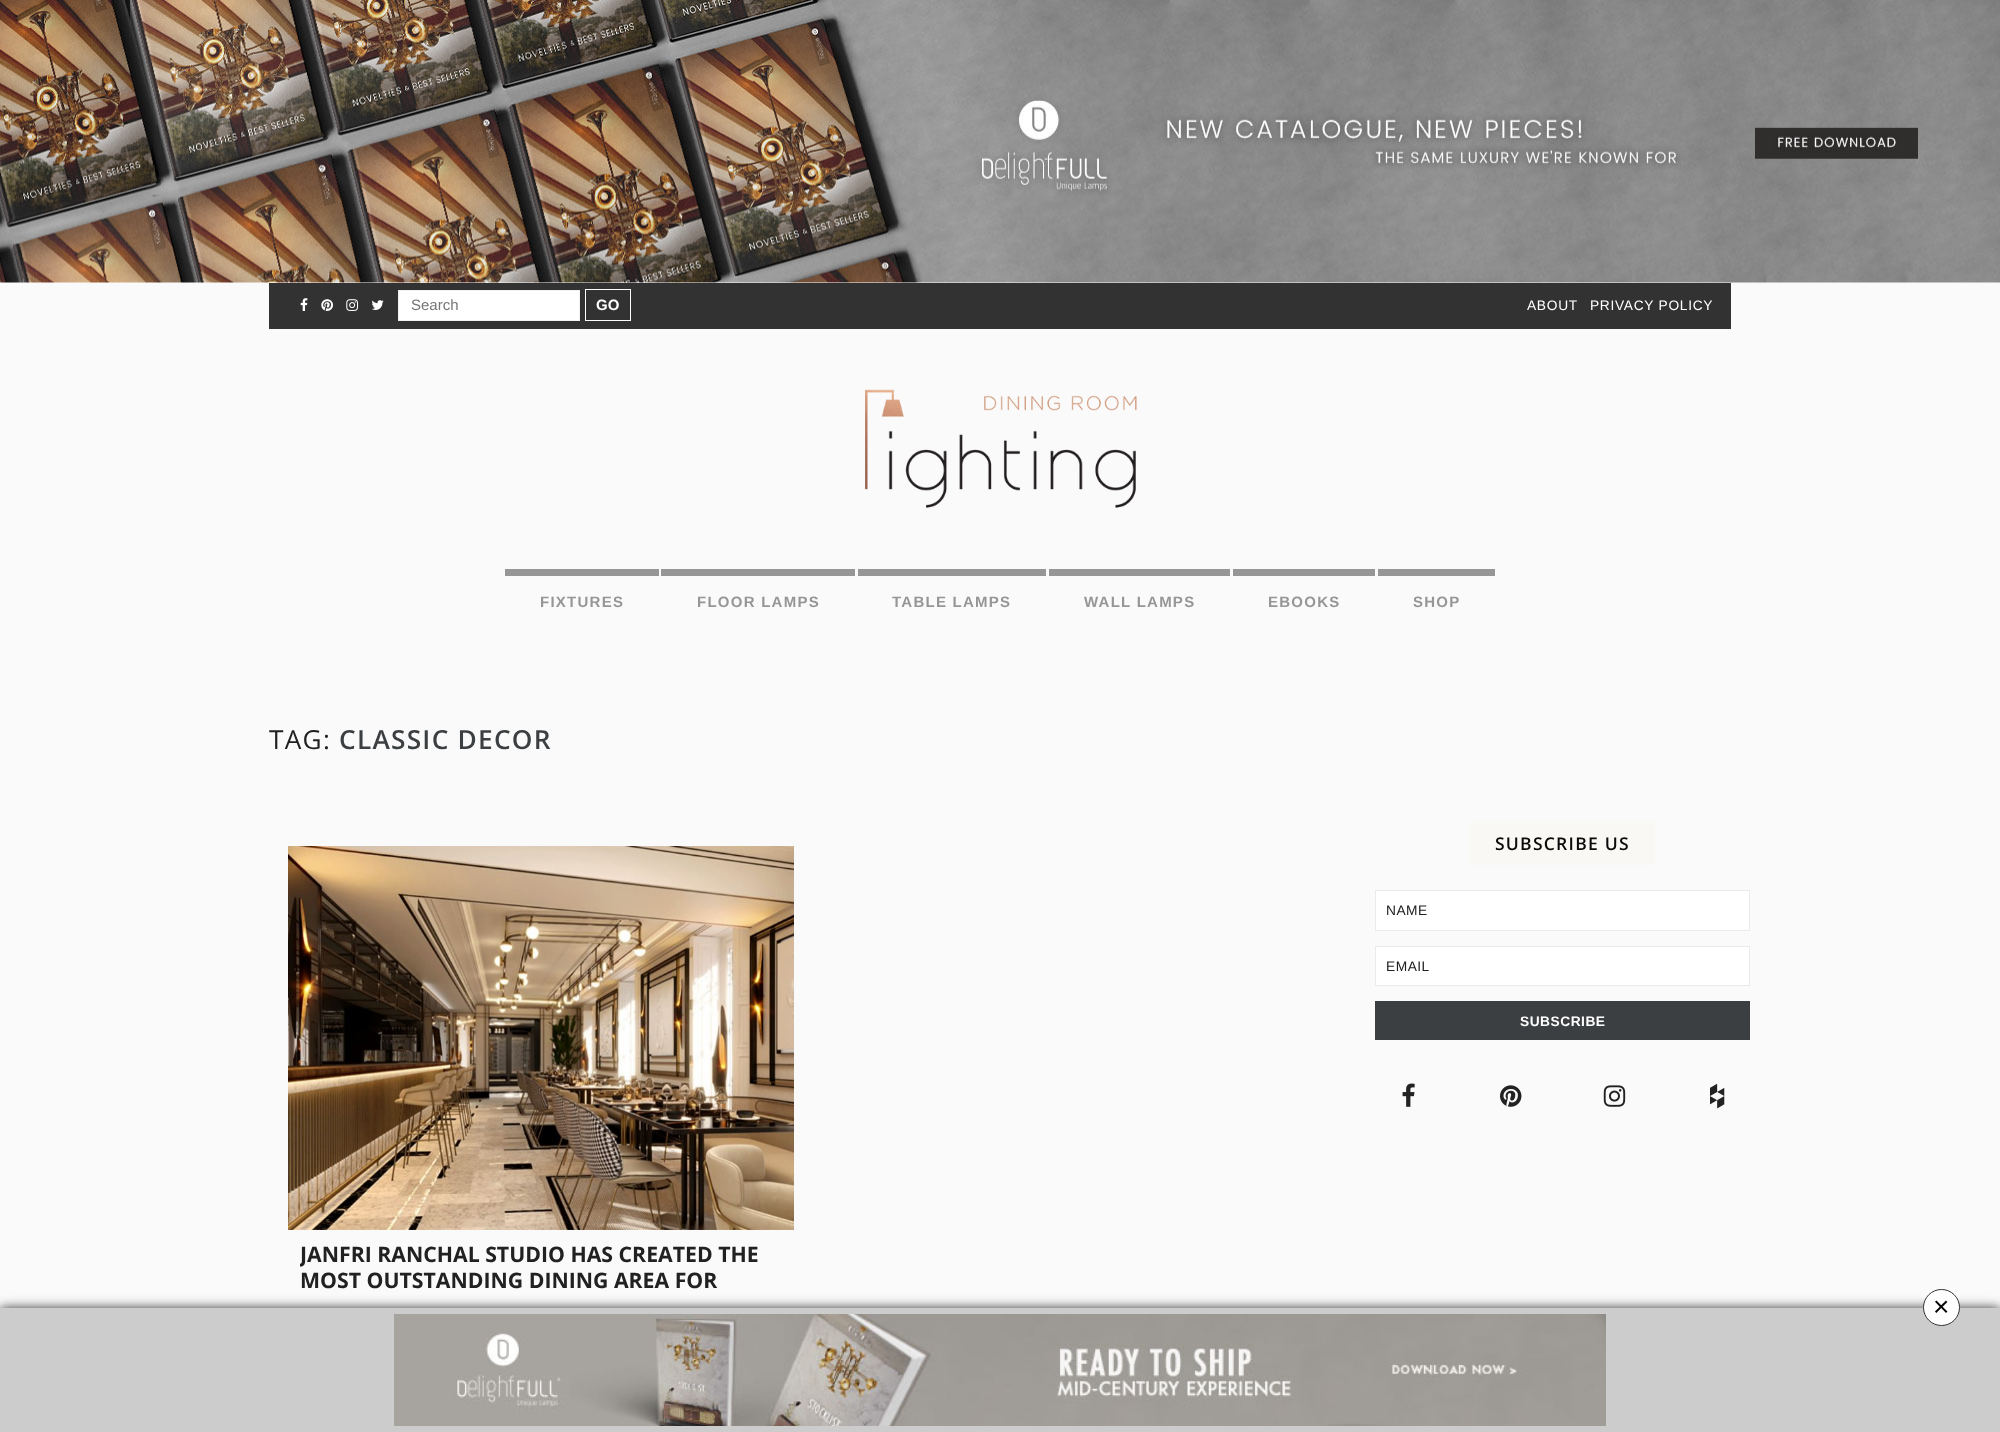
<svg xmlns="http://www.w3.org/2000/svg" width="2000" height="1432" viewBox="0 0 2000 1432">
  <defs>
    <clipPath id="clip1"><rect x="300" y="1243" width="481" height="51"/></clipPath>
    <filter id="blur1" x="-50%" y="-200%" width="200%" height="500%"><feGaussianBlur stdDeviation="6"/></filter>
  </defs>
  <rect width="100%" height="100%" fill="#fafafa"/>
  <image x="0" y="0" width="2000" height="283" href="img1.png"/>
  <path d="M0-.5H2000" fill="none" stroke="#959595" stroke-width="1.2" stroke-dasharray="1.25 1.25"/>
  <rect x="269" y="283" width="1462" height="46" fill="#323232"/>
  <image x="300" y="298" width="8" height="13" href="img2.png"/>
  <image x="321" y="299" width="12" height="12" href="img3.png"/>
  <image x="346" y="299" width="13" height="12" href="img4.png"/>
  <image x="371" y="300" width="13" height="10" href="img5.png"/>
  <rect x="398.5" y="290.5" width="181" height="30" fill="#ffffff" stroke="#f2f2f2"/>
  <text x="411" y="310" font-family="Liberation Sans" font-size="15" fill="#767676">Search</text>
  <rect x="585.5" y="289.5" width="45" height="31" fill="none" stroke="#ffffff"/>
  <text x="596" y="310" font-family="Liberation Sans" font-size="15" font-weight="bold" fill="#ffffff">GO</text>
  <text x="1527" y="310" font-family="Liberation Sans" font-size="13.75" letter-spacing="0.7" fill="#ffffff">ABOUT</text>
  <text x="1590" y="310" font-family="Liberation Sans" font-size="13.75" letter-spacing="0.7" fill="#ffffff">PRIVACY POLICY</text>
  <image x="865" y="389" width="272" height="119" href="img6.png"/>
  <rect x="505" y="569" width="154" height="7" fill="#969696"/>
  <text x="540" y="607" font-family="Liberation Sans" font-size="15" font-weight="bold" letter-spacing="1.25" fill="#969696">FIXTURES</text>
  <rect x="661" y="569" width="194" height="7" fill="#969696"/>
  <text x="697" y="607" font-family="Liberation Sans" font-size="15" font-weight="bold" letter-spacing="1.25" fill="#969696">FLOOR LAMPS</text>
  <rect x="858" y="569" width="188" height="7" fill="#969696"/>
  <text x="892" y="607" font-family="Liberation Sans" font-size="15" font-weight="bold" letter-spacing="1.25" fill="#969696">TABLE LAMPS</text>
  <rect x="1049" y="569" width="181" height="7" fill="#969696"/>
  <text x="1084" y="607" font-family="Liberation Sans" font-size="15" font-weight="bold" letter-spacing="1.25" fill="#969696">WALL LAMPS</text>
  <rect x="1233" y="569" width="142" height="7" fill="#969696"/>
  <text x="1268" y="607" font-family="Liberation Sans" font-size="15" font-weight="bold" letter-spacing="1.25" fill="#969696">EBOOKS</text>
  <rect x="1378" y="569" width="117" height="7" fill="#969696"/>
  <text x="1413" y="607" font-family="Liberation Sans" font-size="15" font-weight="bold" letter-spacing="1.25" fill="#969696">SHOP</text>
  <text x="269" y="749" font-family="Open Sans" font-size="26.25" letter-spacing="1.25" fill="#212121">TAG:</text>
  <text x="339" y="749" font-family="Open Sans" font-size="26.25" font-weight="600" letter-spacing="1.25" fill="#3c3f41">CLASSIC DECOR</text>
  <rect x="1470" y="821" width="185" height="44" fill="#f9f8f4"/>
  <text x="1495" y="850" font-family="Open Sans" font-size="17.5" font-weight="600" letter-spacing="1.25" fill="#0a0a0a">SUBSCRIBE US</text>
  <rect x="1375.5" y="890.5" width="374" height="40" fill="#ffffff" stroke="#eaeaea"/>
  <text x="1386" y="915" font-family="Liberation Sans" font-size="13.75" letter-spacing="0.5" fill="#212121">NAME</text>
  <rect x="1375.5" y="946.5" width="374" height="39" fill="#ffffff" stroke="#eaeaea"/>
  <text x="1386" y="971" font-family="Liberation Sans" font-size="13.75" letter-spacing="0.5" fill="#212121">EMAIL</text>
  <rect x="1375" y="1001" width="375" height="39" fill="#3c3f41"/>
  <text x="1520" y="1026" font-family="Liberation Sans" font-size="13.75" font-weight="bold" letter-spacing="0.5" fill="#ffffff">SUBSCRIBE</text>
  <image x="1402" y="1083" width="13" height="24" href="img7.png"/>
  <image x="1500" y="1085" width="22" height="22" href="img8.png"/>
  <image x="1603" y="1085" width="23" height="22" href="img9.png"/>
  <image x="1710" y="1083" width="15" height="26" href="img10.png"/>
  <image x="288" y="846" width="506" height="384" href="img11.png"/>
  <g clip-path="url(#clip1)">
    <text x="300" y="1262" font-family="Open Sans" font-size="21.25" font-weight="bold" fill="#212121">JANFRI RANCHAL STUDIO HAS CREATED THE</text>
  </g>
  <text x="300" y="1288" font-family="Open Sans" font-size="21.25" font-weight="bold" fill="#212121">MOST OUTSTANDING DINING AREA FOR</text>
  <rect x="0" y="1308" width="2000" height="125" fill="#000000" fill-opacity="0.8" filter="url(#blur1)"/>
  <rect x="0" y="1308" width="2000" height="124" fill="#cccccc"/>
  <circle cx="1941.5" cy="1307.5" r="18" fill="#ffffff" stroke="#333333"/>
  <text x="1933" y="1316" font-family="Liberation Sans" font-size="28" fill="#000000">×</text>
  <image x="394" y="1314" width="1212" height="112" href="img12.png"/>
</svg>
